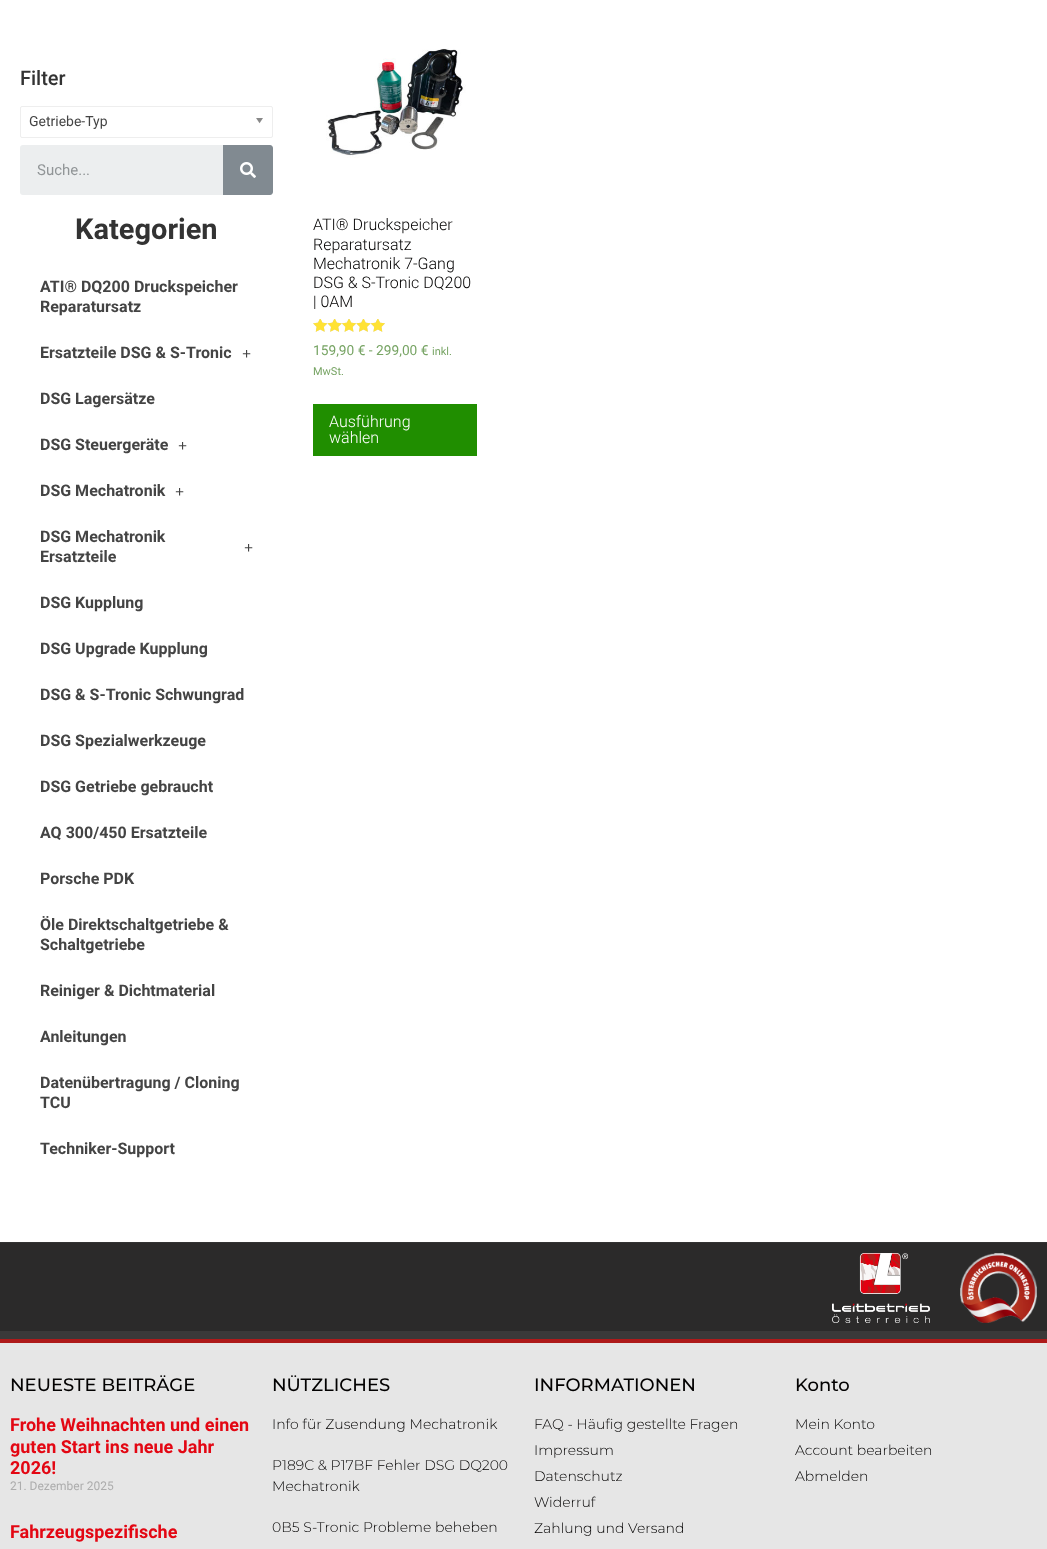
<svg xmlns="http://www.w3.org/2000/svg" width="1047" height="1549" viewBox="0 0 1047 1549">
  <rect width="100%" height="100%" fill="#ffffff"/>
  <rect x="0" y="1343" width="1047" height="206" fill="#e6e6e6"/>
  <text x="20" y="85" font-family="Roboto" font-size="20" font-weight="500" fill="#333333">Filter</text>
  <rect x="20.5" y="106.5" width="252" height="31" rx="1.5" fill="none" stroke="#eeeeee"/>
  <text x="29" y="126" font-family="Roboto" font-size="14" fill="#444444">Getriebe-Typ</text>
  <image x="256" y="118" width="7" height="6" href="img1.png"/>
  <rect x="20" y="145" width="253" height="50" rx="3" fill="#eceeef"/>
  <text x="37" y="175" font-family="Roboto" font-size="15" fill="#919597">Suche...</text>
  <path d="M223 145H270C271.5 145 273 146.5 273 148V192C273 193.5 271.5 195 270 195H223Z" fill="#818a91"/>
  <image x="240" y="162" width="16" height="16" href="img2.png"/>
  <text x="75" y="239" font-family="Roboto" font-size="29" font-weight="bold" fill="#333333">Kategorien</text>
  <text x="40" y="292" font-family="Roboto" font-size="16" font-weight="bold" fill="#444444">ATI® DQ200 Druckspeicher</text>
  <text x="40" y="312" font-family="Roboto" font-size="16" font-weight="bold" fill="#444444">Reparatursatz</text>
  <text x="40" y="358" font-family="Roboto" font-size="16" font-weight="bold" fill="#444444">Ersatzteile DSG &amp; S-Tronic</text>
  <text x="242" y="359" font-family="Liberation Serif" font-size="16" font-weight="bold" fill="#444444">+</text>
  <text x="40" y="404" font-family="Roboto" font-size="16" font-weight="bold" fill="#444444">DSG Lagersätze</text>
  <text x="40" y="450" font-family="Roboto" font-size="16" font-weight="bold" fill="#444444">DSG Steuergeräte</text>
  <text x="178" y="451" font-family="Liberation Serif" font-size="16" font-weight="bold" fill="#444444">+</text>
  <text x="40" y="496" font-family="Roboto" font-size="16" font-weight="bold" fill="#444444">DSG Mechatronik</text>
  <text x="175" y="497" font-family="Liberation Serif" font-size="16" font-weight="bold" fill="#444444">+</text>
  <text x="40" y="542" font-family="Roboto" font-size="16" font-weight="bold" fill="#444444">DSG Mechatronik</text>
  <text x="244" y="553" font-family="Liberation Serif" font-size="16" font-weight="bold" fill="#444444">+</text>
  <text x="40" y="562" font-family="Roboto" font-size="16" font-weight="bold" fill="#444444">Ersatzteile</text>
  <text x="40" y="608" font-family="Roboto" font-size="16" font-weight="bold" fill="#444444">DSG Kupplung</text>
  <text x="40" y="654" font-family="Roboto" font-size="16" font-weight="bold" fill="#444444">DSG Upgrade Kupplung</text>
  <text x="40" y="700" font-family="Roboto" font-size="16" font-weight="bold" fill="#444444">DSG &amp; S-Tronic Schwungrad</text>
  <text x="40" y="746" font-family="Roboto" font-size="16" font-weight="bold" fill="#444444">DSG Spezialwerkzeuge</text>
  <text x="40" y="792" font-family="Roboto" font-size="16" font-weight="bold" fill="#444444">DSG Getriebe gebraucht</text>
  <text x="40" y="838" font-family="Roboto" font-size="16" font-weight="bold" fill="#444444">AQ 300/450 Ersatzteile</text>
  <text x="40" y="884" font-family="Roboto" font-size="16" font-weight="bold" fill="#444444">Porsche PDK</text>
  <text x="40" y="930" font-family="Roboto" font-size="16" font-weight="bold" fill="#444444">Öle Direktschaltgetriebe &amp;</text>
  <text x="40" y="950" font-family="Roboto" font-size="16" font-weight="bold" fill="#444444">Schaltgetriebe</text>
  <text x="40" y="996" font-family="Roboto" font-size="16" font-weight="bold" fill="#444444">Reiniger &amp; Dichtmaterial</text>
  <text x="40" y="1042" font-family="Roboto" font-size="16" font-weight="bold" fill="#444444">Anleitungen</text>
  <text x="40" y="1088" font-family="Roboto" font-size="16" font-weight="bold" fill="#444444">Datenübertragung / Cloning</text>
  <text x="40" y="1108" font-family="Roboto" font-size="16" font-weight="bold" fill="#444444">TCU</text>
  <text x="40" y="1154" font-family="Roboto" font-size="16" font-weight="bold" fill="#444444">Techniker-Support</text>
  <image x="326" y="48" width="140" height="110" href="img3.png"/>
  <text x="313" y="230" font-family="Roboto" font-size="16" font-weight="300" fill="#020101">ATI® Druckspeicher</text>
  <text x="313" y="250" font-family="Roboto" font-size="16" font-weight="300" fill="#020101">Reparatursatz</text>
  <text x="313" y="269" font-family="Roboto" font-size="16" font-weight="300" fill="#020101">Mechatronik 7-Gang</text>
  <text x="313" y="288" font-family="Roboto" font-size="16" font-weight="300" fill="#020101">DSG &amp; S-Tronic DQ200</text>
  <text x="313" y="307" font-family="Roboto" font-size="16" font-weight="300" fill="#020101">| 0AM</text>
  <image x="313" y="319" width="72" height="13" href="img4.png"/>
  <image x="313" y="319" width="72" height="13" href="img5.png"/>
  <text x="313" y="355" font-family="Roboto" font-size="13.75" fill="#77a464">159,90 € - 299,00 €</text>
  <text x="432" y="355" font-family="Roboto" font-size="11" fill="#77a464">inkl.</text>
  <text x="313" y="375" font-family="Roboto" font-size="11" fill="#77a464">MwSt.</text>
  <rect x="313" y="404" width="164" height="52" fill="#208e00"/>
  <text x="329" y="427" font-family="Roboto" font-size="16" font-weight="300" fill="#ffffff">Ausführung</text>
  <text x="329" y="443" font-family="Roboto" font-size="16" font-weight="300" fill="#ffffff">wählen</text>
  <rect x="0" y="1243" width="1047" height="88" fill="#2b2a2a"/>
  <rect x="0" y="1331" width="1047" height="8" fill="#3a3939"/>
  <rect x="0" y="1242" width="1047" height="1" fill="#333333"/>
  <image x="832" y="1253" width="98" height="70" href="img6.png"/>
  <image x="960" y="1253" width="77" height="70" href="img7.png"/>
  <rect x="0" y="1339" width="1047" height="4" fill="#ae1a1a"/>
  <text x="10" y="1391" font-family="Montserrat" font-size="18" font-weight="100" fill="#020101">NEUESTE BEITRÄGE</text>
  <text x="10" y="1431" font-family="Roboto" font-size="18" font-weight="bold" fill="#e30713">Frohe Weihnachten und einen</text>
  <text x="10" y="1453" font-family="Roboto" font-size="18" font-weight="bold" fill="#e30713">guten Start ins neue Jahr</text>
  <text x="10" y="1474" font-family="Roboto" font-size="18" font-weight="bold" fill="#e30713">2026!</text>
  <text x="10" y="1490" font-family="Roboto" font-size="12" fill="#adadad">21. Dezember 2025</text>
  <text x="10" y="1538" font-family="Roboto" font-size="18" font-weight="bold" fill="#e30713">Fahrzeugspezifische</text>
  <text x="272" y="1391" font-family="Montserrat" font-size="18" font-weight="100" fill="#020101">NÜTZLICHES</text>
  <text x="272" y="1429" font-family="'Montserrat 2'" font-size="14" font-weight="100" fill="#020101">Info für Zusendung Mechatronik</text>
  <text x="272" y="1470" font-family="'Montserrat 2'" font-size="14" font-weight="100" fill="#020101">P189C &amp; P17BF Fehler DSG DQ200</text>
  <text x="272" y="1491" font-family="'Montserrat 2'" font-size="14" font-weight="100" fill="#020101">Mechatronik</text>
  <text x="272" y="1532" font-family="'Montserrat 2'" font-size="14" font-weight="100" fill="#020101">0B5 S-Tronic Probleme beheben</text>
  <text x="534" y="1391" font-family="Montserrat" font-size="18" font-weight="100" fill="#020101">INFORMATIONEN</text>
  <text x="534" y="1429" font-family="'Montserrat 2'" font-size="14" font-weight="100" fill="#020101">FAQ - Häufig gestellte Fragen</text>
  <text x="534" y="1455" font-family="'Montserrat 2'" font-size="14" font-weight="100" fill="#020101">Impressum</text>
  <text x="534" y="1481" font-family="'Montserrat 2'" font-size="14" font-weight="100" fill="#020101">Datenschutz</text>
  <text x="534" y="1507" font-family="'Montserrat 2'" font-size="14" font-weight="100" fill="#020101">Widerruf</text>
  <text x="534" y="1533" font-family="'Montserrat 2'" font-size="14" font-weight="100" fill="#020101">Zahlung und Versand</text>
  <text x="795" y="1391" font-family="Montserrat" font-size="18" font-weight="100" fill="#020101">Konto</text>
  <text x="795" y="1429" font-family="'Montserrat 2'" font-size="14" font-weight="100" fill="#020101">Mein Konto</text>
  <text x="795" y="1455" font-family="'Montserrat 2'" font-size="14" font-weight="100" fill="#020101">Account bearbeiten</text>
  <text x="795" y="1481" font-family="'Montserrat 2'" font-size="14" font-weight="100" fill="#020101">Abmelden</text>
</svg>
